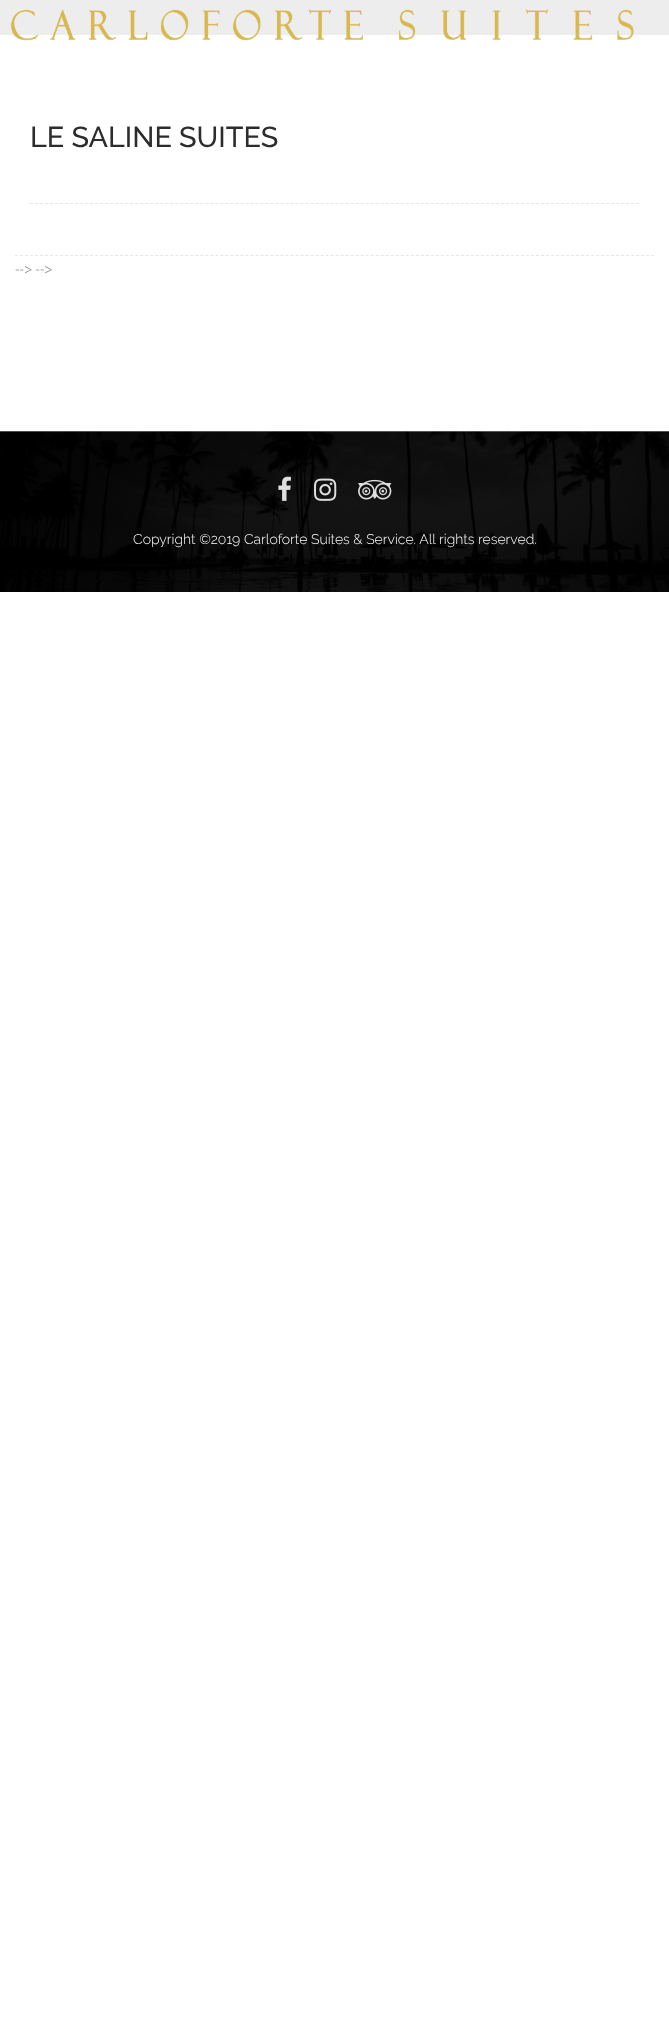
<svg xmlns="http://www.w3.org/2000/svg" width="669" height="2029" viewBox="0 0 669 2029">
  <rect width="100%" height="100%" fill="#ffffff"/>
  <rect x="0" y="0" width="669" height="35" fill="#ededed"/>
  <image x="10" y="9" width="624" height="32" href="img1.png"/>
  <path d="M15 255.5H654" fill="none" stroke="#e6e6e6" stroke-dasharray="3 2.01"/>
  <path d="M30 203.5H639" fill="none" stroke="#e6e6e6" stroke-dasharray="3 2.01"/>
  <text x="30" y="147" font-family="Raleway" font-size="28.75" font-weight="500" fill="#2c2c2c">LE SALINE SUITES</text>
  <text x="15" y="274" font-family="Oxygen" font-size="14" font-weight="300" fill="#8d8d8d">--&gt; --&gt;</text>
  <image x="0" y="431" width="669" height="161" href="img2.png"/>
  <rect x="0" y="431" width="669" height="1" fill="#f1f1f1" fill-opacity="0.32"/>
  <image x="278" y="476" width="13" height="25" href="img3.png"/>
  <image x="314" y="478" width="23" height="23" href="img4.png"/>
  <image x="358" y="479" width="34" height="21" href="img5.png"/>
  <text x="133" y="544" font-family="Raleway" font-size="14" font-weight="100" fill="#ffffff">Copyright ©2019 Carloforte Suites &amp; Service. All rights reserved.</text>
</svg>
